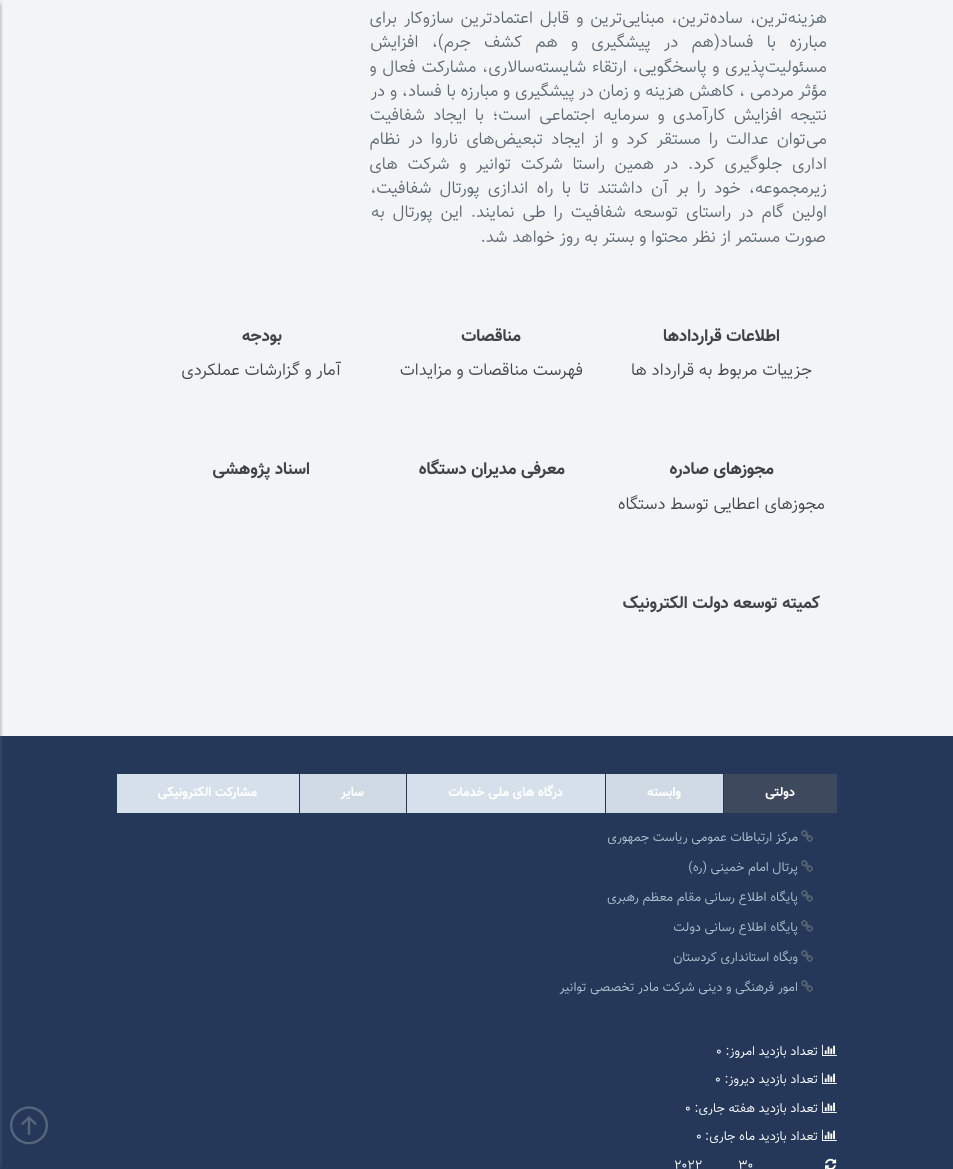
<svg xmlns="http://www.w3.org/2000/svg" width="953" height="1169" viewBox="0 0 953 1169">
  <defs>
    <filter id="blur1" x="-50%" y="-200%" width="200%" height="500%"><feGaussianBlur stdDeviation="2.5"/></filter>
  </defs>
  <rect width="100%" height="100%" fill="#f2f4f6"/>
  <text x="827" y="23" word-spacing="2.25" font-family="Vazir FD" font-size="17" font-weight="300" direction="rtl" fill="#5c6873">هزینه‌ترین، ساده‌ترین، مبنایی‌ترین و قابل اعتمادترین سازوکار برای</text>
  <text x="827" y="47" word-spacing="8.5" font-family="Vazir FD" font-size="17" font-weight="300" direction="rtl" fill="#5c6873">مبارزه با فساد(هم در پیشگیری و هم کشف جرم)، افزایش</text>
  <text x="827" y="72" word-spacing="1" font-family="Vazir FD" font-size="17" font-weight="300" direction="rtl" fill="#5c6873">مسئولیت‌پذیری و پاسخگویی، ارتقاء شایسته‌سالاری، مشارکت فعال و</text>
  <text x="827" y="96" word-spacing="0.1" font-family="Vazir FD" font-size="17" font-weight="300" direction="rtl" fill="#5c6873">مؤثر مردمی ، کاهش هزینه و زمان در پیشگیری و مبارزه با فساد، و در</text>
  <text x="827" y="120" word-spacing="3.5" font-family="Vazir FD" font-size="17" font-weight="300" direction="rtl" fill="#5c6873">نتیجه افزایش کارآمدی و سرمایه اجتماعی است؛ با ایجاد شفافیت</text>
  <text x="827" y="144" word-spacing="3.5" font-family="Vazir FD" font-size="17" font-weight="300" direction="rtl" fill="#5c6873">می‌توان عدالت را مستقر کرد و از ایجاد تبعیض‌های ناروا در نظام</text>
  <text x="827" y="169" word-spacing="5" font-family="Vazir FD" font-size="17" font-weight="300" direction="rtl" fill="#5c6873">اداری جلوگیری کرد. در همین راستا شرکت توانیر و شرکت های</text>
  <text x="827" y="193" word-spacing="3.5" font-family="Vazir FD" font-size="17" font-weight="300" direction="rtl" fill="#5c6873">زیرمجموعه، خود را بر آن داشتند تا با راه اندازی پورتال شفافیت،</text>
  <text x="827" y="217" word-spacing="3.25" font-family="Vazir FD" font-size="17" font-weight="300" direction="rtl" fill="#5c6873">اولین گام در راستای توسعه شفافیت را طی نمایند. این پورتال به</text>
  <text x="826" y="242" font-family="Vazir FD" font-size="17" font-weight="300" direction="rtl" fill="#5c6873">صورت مستمر از نظر محتوا و بستر به روز خواهد شد.</text>
  <text x="780" y="341" font-family="Vazir FD" font-size="17" font-weight="bold" direction="rtl" fill="#3f444a">اطلاعات قراردادها</text>
  <text x="812" y="375" font-family="Vazir FD" font-size="17" font-weight="300" direction="rtl" fill="#3f444a">جزییات مربوط به قرارداد ها</text>
  <text x="521" y="341" font-family="Vazir FD" font-size="17" font-weight="bold" direction="rtl" fill="#3f444a">مناقصات</text>
  <text x="583" y="375" font-family="Vazir FD" font-size="17" font-weight="300" direction="rtl" fill="#3f444a">فهرست مناقصات و مزايدات</text>
  <text x="282" y="341" font-family="Vazir FD" font-size="17" font-weight="bold" direction="rtl" fill="#3f444a">بودجه</text>
  <text x="341" y="375" font-family="Vazir FD" font-size="17" font-weight="300" direction="rtl" fill="#3f444a">آمار و گزارشات عملكردی</text>
  <text x="774" y="474" font-family="Vazir FD" font-size="17" font-weight="bold" direction="rtl" fill="#3f444a">مجوزهای صادره</text>
  <text x="825" y="509" font-family="Vazir FD" font-size="17" font-weight="300" direction="rtl" fill="#3f444a">مجوز‌های اعطايی توسط دستگاه</text>
  <text x="565" y="474" font-family="Vazir FD" font-size="17" font-weight="bold" direction="rtl" fill="#3f444a">معرفی مديران دستگاه</text>
  <text x="310" y="474" font-family="Vazir FD" font-size="17" font-weight="bold" direction="rtl" fill="#3f444a">اسناد پژوهشی</text>
  <text x="820" y="608" font-family="Vazir FD" font-size="17" font-weight="bold" direction="rtl" fill="#3f444a">کمیته توسعه دولت الکترونیک</text>
  <rect x="0" y="736" width="953" height="433" fill="#253859"/>
  <rect x="-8" y="3" width="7" height="1165" fill="#5c6873" filter="url(#blur1)"/>
  <rect x="724" y="774" width="113" height="39" fill="#3e495e"/>
  <text x="795" y="796" font-family="Vazir FD" font-size="13" font-weight="bold" direction="rtl" fill="#ffffff">دولتی</text>
  <rect x="606" y="774" width="117" height="39" fill="#cfdae4"/>
  <text x="681" y="796" font-family="Vazir FD" font-size="13" font-weight="bold" direction="rtl" fill="#ffffff">وابسته</text>
  <rect x="407" y="774" width="198" height="39" fill="#d5e0ea"/>
  <text x="563" y="796" font-family="Vazir FD" font-size="13" font-weight="bold" direction="rtl" fill="#ffffff">درگاه های ملی خدمات</text>
  <rect x="300" y="774" width="106" height="39" fill="#cfdae4"/>
  <text x="364" y="796" font-family="Vazir FD" font-size="13" font-weight="bold" direction="rtl" fill="#ffffff">سایر</text>
  <rect x="117" y="774" width="182" height="39" fill="#d5e0ea"/>
  <text x="257" y="796" font-family="Vazir FD" font-size="13" font-weight="bold" direction="rtl" fill="#ffffff">مشارکت الکترونیکی</text>
  <image x="801" y="830" width="12" height="12" href="img1.png"/>
  <text x="798" y="841" font-family="Vazir FD" font-size="13" font-weight="300" direction="rtl" fill="#b1c4d0">مرکز ارتباطات عمومی ریاست جمهوری</text>
  <image x="801" y="860" width="12" height="12" href="img1.png"/>
  <text x="798" y="871" font-family="Vazir FD" font-size="13" font-weight="300" direction="rtl" fill="#b1c4d0">پرتال امام خمینی (ره)</text>
  <image x="801" y="890" width="12" height="12" href="img1.png"/>
  <text x="798" y="901" font-family="Vazir FD" font-size="13" font-weight="300" direction="rtl" fill="#b1c4d0">پایگاه اطلاع رسانی مقام معظم رهبری</text>
  <image x="801" y="920" width="12" height="12" href="img1.png"/>
  <text x="798" y="931" font-family="Vazir FD" font-size="13" font-weight="300" direction="rtl" fill="#b1c4d0">پایگاه اطلاع رسانی دولت</text>
  <image x="801" y="950" width="12" height="12" href="img1.png"/>
  <text x="798" y="961" font-family="Vazir FD" font-size="13" font-weight="300" direction="rtl" fill="#b1c4d0">وبگاه استانداری کردستان</text>
  <image x="801" y="980" width="12" height="12" href="img1.png"/>
  <text x="798" y="991" font-family="Vazir FD" font-size="13" font-weight="300" direction="rtl" fill="#b1c4d0">امور فرهنگی و دینی شرکت مادر تخصصی توانیر</text>
  <image x="822" y="1044" width="15" height="12" href="img2.png"/>
  <text x="818" y="1055" font-family="Vazir FD" font-size="13" font-weight="300" direction="rtl" fill="#ffffff">تعداد بازدید امروز:</text>
  <text x="716" y="1055" font-family="Vazir FD" font-size="13" font-weight="300" fill="#ffffff">0</text>
  <image x="822" y="1072" width="15" height="12" href="img2.png"/>
  <text x="818" y="1083" font-family="Vazir FD" font-size="13" font-weight="300" direction="rtl" fill="#ffffff">تعداد بازدید دیروز:</text>
  <text x="715" y="1083" font-family="Vazir FD" font-size="13" font-weight="300" fill="#ffffff">0</text>
  <image x="822" y="1101" width="15" height="12" href="img2.png"/>
  <text x="818" y="1112" font-family="Vazir FD" font-size="13" font-weight="300" direction="rtl" fill="#ffffff">تعداد بازدید هفته جاری:</text>
  <text x="685" y="1112" font-family="Vazir FD" font-size="13" font-weight="300" fill="#ffffff">0</text>
  <image x="822" y="1129" width="15" height="12" href="img2.png"/>
  <text x="818" y="1140" font-family="Vazir FD" font-size="13" font-weight="300" direction="rtl" fill="#ffffff">تعداد بازدید ماه جاری:</text>
  <text x="696" y="1140" font-family="Vazir FD" font-size="13" font-weight="300" fill="#ffffff">0</text>
  <image x="825" y="1158" width="12" height="11" href="img3.png"/>
  <text x="738" y="1169" font-family="Vazir FD" font-size="13" font-weight="300" fill="#ffffff">30</text>
  <text x="674" y="1169" font-family="Vazir FD" font-size="13" font-weight="300" fill="#ffffff">2022</text>
  <image x="10" y="1106" width="38" height="39" href="img4.png"/>
</svg>
